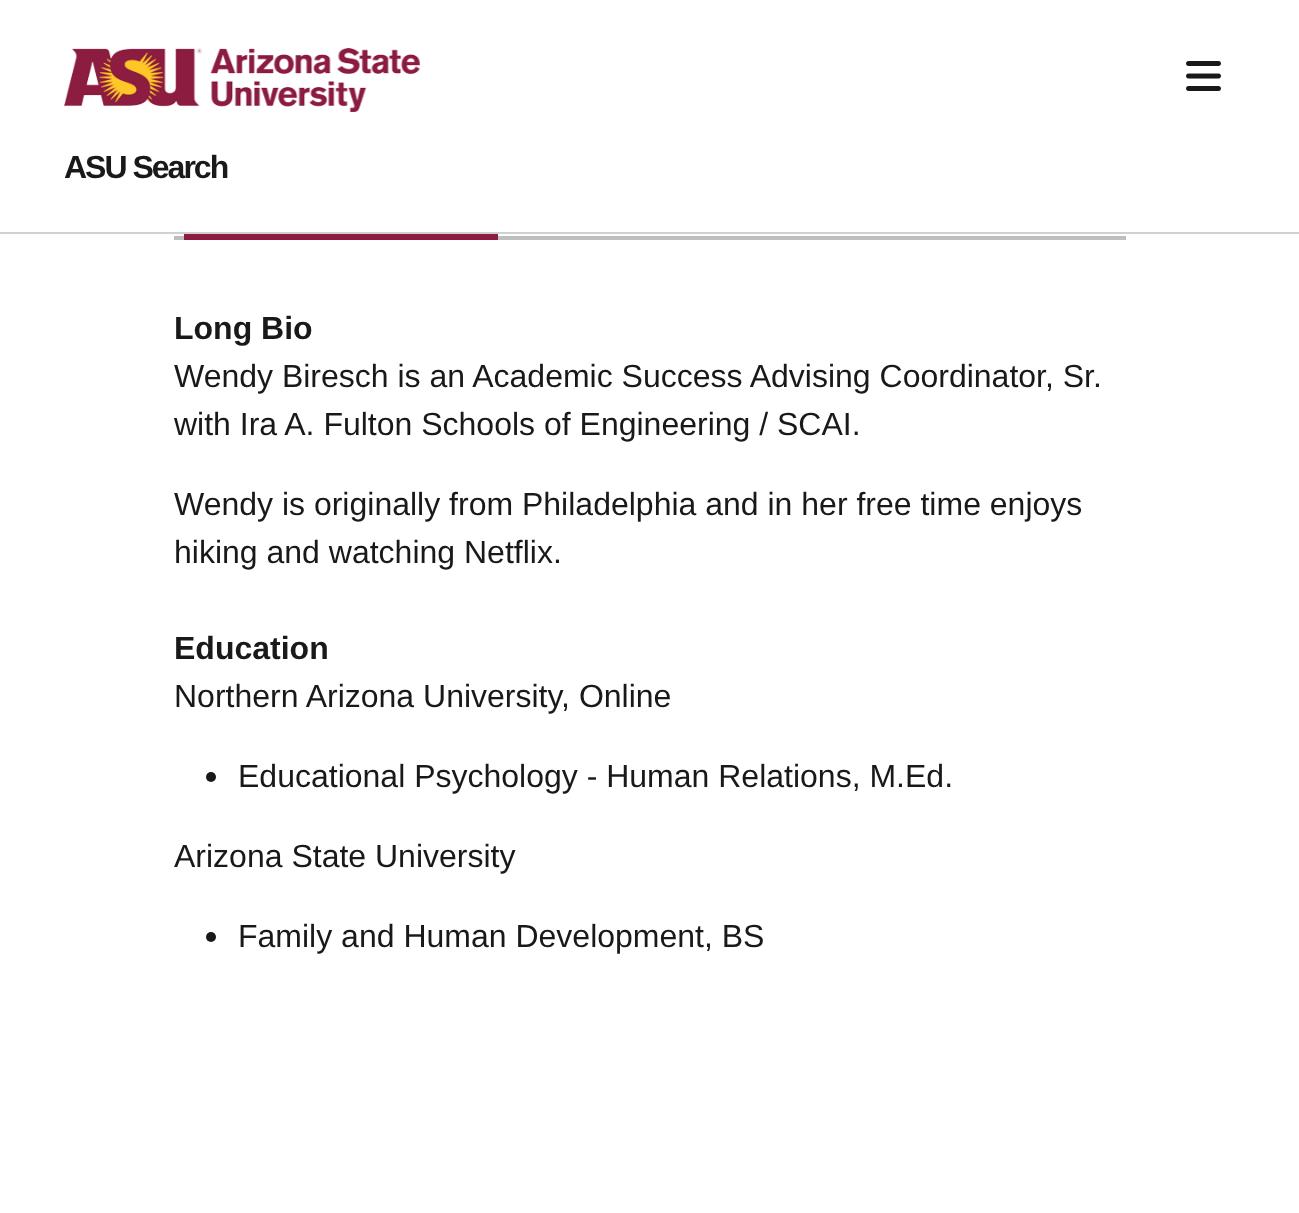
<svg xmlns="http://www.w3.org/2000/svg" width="1299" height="1213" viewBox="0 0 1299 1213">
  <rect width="100%" height="100%" fill="#ffffff"/>
  <rect x="0" y="232" width="1299" height="2" fill="#d0d0d0"/>
  <image x="64" y="48" width="356" height="64" href="img1.png"/>
  <image x="1186" y="61" width="35" height="30" href="img2.png"/>
  <text x="64" y="178" font-family="Liberation Sans" font-size="32" font-weight="bold" letter-spacing="-2" fill="#191919">ASU Search</text>
  <rect x="174" y="236" width="952" height="4" fill="#bfbfbf"/>
  <rect x="184" y="234" width="314" height="6" fill="#8c1d40"/>
  <text x="174" y="339" font-family="Liberation Sans" font-size="32" font-weight="bold" fill="#191919">Long Bio</text>
  <text x="174" y="387" font-family="Liberation Sans" font-size="32" fill="#191919">Wendy Biresch is an Academic Success Advising Coordinator, Sr.</text>
  <text x="174" y="435" font-family="Liberation Sans" font-size="32" fill="#191919">with Ira A. Fulton Schools of Engineering / SCAI.</text>
  <text x="174" y="515" font-family="Liberation Sans" font-size="32" fill="#191919">Wendy is originally from Philadelphia and in her free time enjoys</text>
  <text x="174" y="563" font-family="Liberation Sans" font-size="32" fill="#191919">hiking and watching Netflix.</text>
  <text x="174" y="659" font-family="Liberation Sans" font-size="32" font-weight="bold" fill="#191919">Education</text>
  <text x="174" y="707" font-family="Liberation Sans" font-size="32" fill="#191919">Northern Arizona University, Online</text>
  <circle cx="211" cy="777" r="5" fill="#191919"/>
  <text x="238" y="787" font-family="Liberation Sans" font-size="32" fill="#191919">Educational Psychology - Human Relations, M.Ed.</text>
  <text x="174" y="867" font-family="Liberation Sans" font-size="32" fill="#191919">Arizona State University</text>
  <circle cx="211" cy="937" r="5" fill="#191919"/>
  <text x="238" y="947" font-family="Liberation Sans" font-size="32" fill="#191919">Family and Human Development, BS</text>
</svg>
